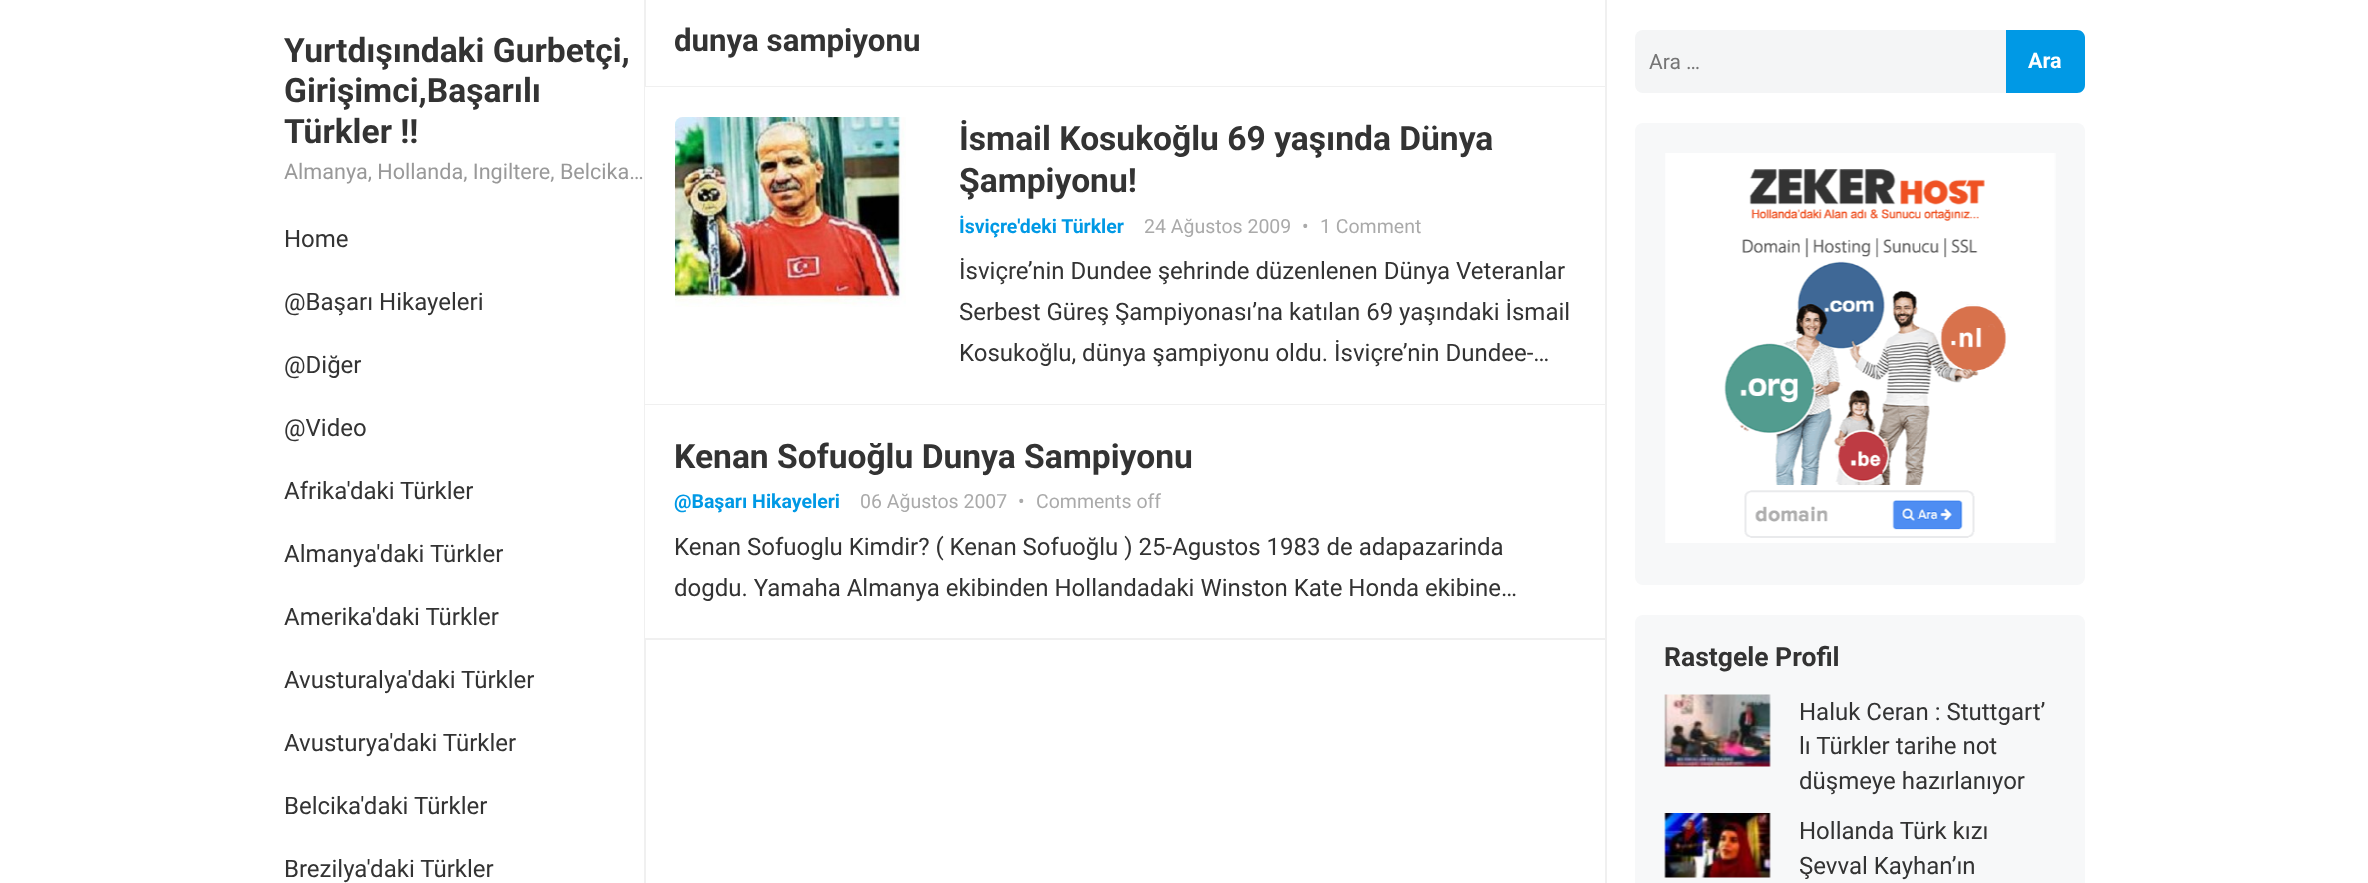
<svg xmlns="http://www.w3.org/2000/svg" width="2368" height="883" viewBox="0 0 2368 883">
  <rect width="100%" height="100%" fill="#ffffff"/>
  <rect x="644" y="0" width="2" height="883" fill="#f0f0f0"/>
  <rect x="1605" y="0" width="2" height="883" fill="#f0f0f0"/>
  <text x="284" y="62" font-family="Roboto" font-size="33.6" font-weight="bold" fill="#333333">Yurtdışındaki Gurbetçi,</text>
  <text x="284" y="102" font-family="Roboto" font-size="33.6" font-weight="bold" fill="#333333">Girişimci,Başarılı</text>
  <text x="284" y="143" font-family="Roboto" font-size="33.6" font-weight="bold" fill="#333333">Türkler !!</text>
  <text x="284" y="179" font-family="Roboto" font-size="21.6" fill="#999999">Almanya, Hollanda, Ingiltere, Belcika…</text>
  <text x="284" y="247" font-family="Roboto" font-size="24" fill="#333333">Home</text>
  <text x="284" y="310" font-family="Roboto" font-size="24" fill="#333333">@Başarı Hikayeleri</text>
  <text x="284" y="373" font-family="Roboto" font-size="24" fill="#333333">@Diğer</text>
  <text x="284" y="436" font-family="Roboto" font-size="24" fill="#333333">@Video</text>
  <text x="284" y="499" font-family="Roboto" font-size="24" fill="#333333">Afrika'daki Türkler</text>
  <text x="284" y="562" font-family="Roboto" font-size="24" fill="#333333">Almanya'daki Türkler</text>
  <text x="284" y="625" font-family="Roboto" font-size="24" fill="#333333">Amerika'daki Türkler</text>
  <text x="284" y="688" font-family="Roboto" font-size="24" fill="#333333">Avusturalya'daki Türkler</text>
  <text x="284" y="751" font-family="Roboto" font-size="24" fill="#333333">Avusturya'daki Türkler</text>
  <text x="284" y="814" font-family="Roboto" font-size="24" fill="#333333">Belcika'daki Türkler</text>
  <text x="284" y="877" font-family="Roboto" font-size="24" fill="#333333">Brezilya'daki Türkler</text>
  <rect x="645" y="86" width="960" height="1" fill="#f0f0f0"/>
  <text x="674" y="51" font-family="Roboto" font-size="31.25" font-weight="bold" fill="#333333">dunya sampiyonu</text>
  <rect x="645" y="87" width="1" height="317" fill="#ffffff"/>
  <rect x="645" y="404" width="960" height="1" fill="#f0f0f0"/>
  <image x="675" y="117" width="231" height="190" href="img1.png"/>
  <text x="959" y="150" font-family="Roboto" font-size="33.6" font-weight="bold" fill="#333333">İsmail Kosukoğlu 69 yaşında Dünya</text>
  <text x="959" y="192" font-family="Roboto" font-size="33.6" font-weight="bold" fill="#333333">Şampiyonu!</text>
  <text x="959" y="233" font-family="Roboto" font-size="19.5" font-weight="bold" fill="#0099e5">İsviçre'deki Türkler</text>
  <text x="1144" y="233" font-family="Roboto" font-size="19.5" fill="#aaaaaa">24 Ağustos 2009</text>
  <text x="1302" y="233" font-family="Roboto" font-size="19.5" fill="#aaaaaa">•</text>
  <text x="1320" y="233" font-family="Roboto" font-size="19.5" fill="#aaaaaa">1 Comment</text>
  <text x="959" y="279" font-family="Roboto" font-size="24" fill="#333333">İsviçre’nin Dundee şehrinde düzenlenen Dünya Veteranlar</text>
  <text x="959" y="320" font-family="Roboto" font-size="24" fill="#333333">Serbest Güreş Şampiyonası’na katılan 69 yaşındaki İsmail</text>
  <text x="959" y="361" font-family="Roboto" font-size="24" fill="#333333">Kosukoğlu, dünya şampiyonu oldu. İsviçre’nin Dundee-…</text>
  <rect x="645" y="405" width="1" height="233" fill="#ffffff"/>
  <rect x="645" y="638" width="960" height="2" fill="#f0f0f0"/>
  <text x="674" y="468" font-family="Roboto" font-size="33.6" font-weight="bold" fill="#333333">Kenan Sofuoğlu Dunya Sampiyonu</text>
  <text x="674" y="508" font-family="Roboto" font-size="19.5" font-weight="bold" fill="#0099e5">@Başarı Hikayeleri</text>
  <text x="860" y="508" font-family="Roboto" font-size="19.5" fill="#aaaaaa">06 Ağustos 2007</text>
  <text x="1018" y="508" font-family="Roboto" font-size="19.5" fill="#aaaaaa">•</text>
  <text x="1036" y="508" font-family="Roboto" font-size="19.5" fill="#aaaaaa">Comments off</text>
  <text x="674" y="555" font-family="Roboto" font-size="24" fill="#333333">Kenan Sofuoglu Kimdir? ( Kenan Sofuoğlu ) 25-Agustos 1983 de adapazarinda</text>
  <text x="674" y="596" font-family="Roboto" font-size="24" fill="#333333">dogdu. Yamaha Almanya ekibinden Hollandadaki Winston Kate Honda ekibine…</text>
  <rect x="1635" y="30" width="450" height="63" rx="8" fill="#f4f5f6"/>
  <text x="1649" y="69" font-family="Roboto" font-size="21" fill="#757575">Ara …</text>
  <path d="M2006 30H2077C2081.5 30 2085 33.5 2085 38V85C2085 89.5 2081.5 93 2077 93H2006Z" fill="#0099e5"/>
  <text x="2028" y="68" font-family="Roboto" font-size="21.6" font-weight="bold" fill="#ffffff">Ara</text>
  <rect x="1635" y="123" width="450" height="462" rx="8" fill="#f7f8f9"/>
  <image x="1665" y="153" width="391" height="390" href="img2.png"/>
  <rect x="1635" y="615" width="450" height="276" rx="8" fill="#f7f8f9"/>
  <text x="1664" y="666" font-family="Roboto" font-size="26.5" font-weight="bold" fill="#333333">Rastgele Profil</text>
  <image x="1664" y="694" width="107" height="73" href="img3.png"/>
  <text x="1799" y="720" font-family="Roboto" font-size="24" fill="#333333">Haluk Ceran : Stuttgart’</text>
  <text x="1799" y="754" font-family="Roboto" font-size="24" fill="#333333">lı Türkler tarihe not</text>
  <text x="1799" y="789" font-family="Roboto" font-size="24" fill="#333333">düşmeye hazırlanıyor</text>
  <image x="1664" y="813" width="107" height="65" href="img4.png"/>
  <text x="1799" y="839" font-family="Roboto" font-size="24" fill="#333333">Hollanda Türk kızı</text>
  <text x="1799" y="874" font-family="Roboto" font-size="24" fill="#333333">Şevval Kayhan’ın</text>
</svg>
